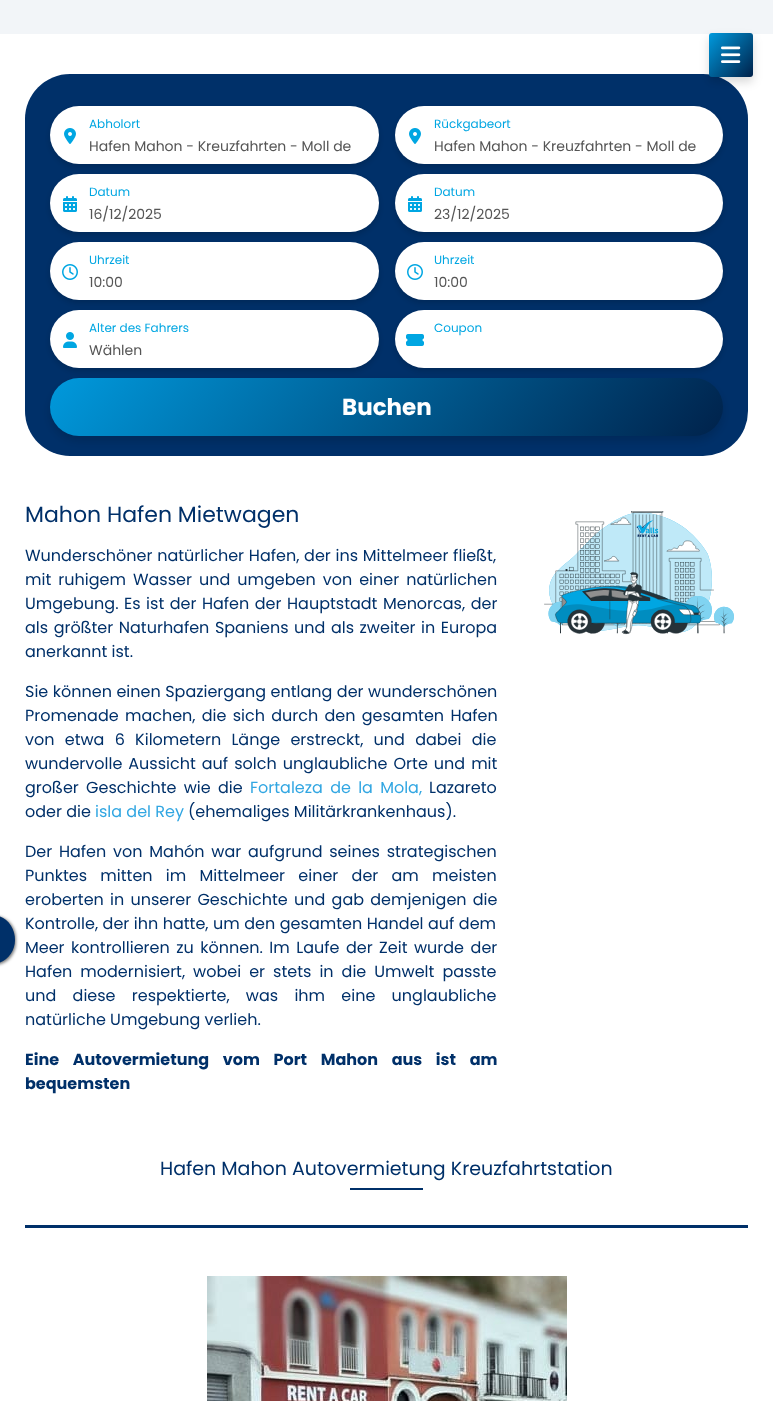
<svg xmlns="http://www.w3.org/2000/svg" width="773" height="1401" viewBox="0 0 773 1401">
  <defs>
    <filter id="blur1" x="-50%" y="-200%" width="200%" height="500%"><feGaussianBlur stdDeviation="5"/></filter>
    <linearGradient id="g1" gradientUnits="userSpaceOnUse" x1="708" y1="35" x2="754" y2="75"><stop offset="0" stop-color="#0099dc"/><stop offset="1" stop-color="#00224b"/></linearGradient>
    <filter id="blur2" x="-50%" y="-200%" width="200%" height="500%"><feGaussianBlur stdDeviation="1.5"/></filter>
    <filter id="blur3" x="-50%" y="-200%" width="200%" height="500%"><feGaussianBlur stdDeviation="3"/></filter>
    <linearGradient id="g2" gradientUnits="userSpaceOnUse" x1="180" y1="228" x2="593" y2="586"><stop offset="0" stop-color="#0099dc"/><stop offset="1" stop-color="#00224b"/></linearGradient>
  </defs>
  <rect width="100%" height="100%" fill="#ffffff"/>
  <rect x="0" y="0" width="773" height="34" fill="#f2f5f8"/>
  <rect x="25" y="74" width="723" height="382" rx="45" fill="#003069"/>
  <rect x="709" y="38" width="44" height="44" rx="3" fill="#000000" fill-opacity="0.15" filter="url(#blur1)"/>
  <rect x="709" y="33" width="44" height="44" rx="3" fill="url(#g1)"/>
  <image x="721" y="46" width="20" height="17" href="img1.png"/>
  <rect x="-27" y="916" width="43" height="49" rx="22.5" fill="#000000" fill-opacity="0.5" filter="url(#blur2)"/>
  <path d="M-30 915H-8C5 915 15 926 15 940C15 953 5 964-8 964H-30Z" fill="#003069"/>
  <rect x="50" y="109" width="329" height="58" rx="29" fill="#000000" fill-opacity="0.16" filter="url(#blur3)"/>
  <rect x="50" y="106" width="329" height="58" rx="29" fill="#ffffff"/>
  <text x="89" y="128" font-family="Poppins" font-size="12" fill="#00a6e2">Abholort</text>
  <image x="64" y="128" width="12" height="16" href="img2.png"/>
  <text x="89" y="151" font-family="Poppins" font-size="14" fill="#555555">Hafen Mahon - Kreuzfahrten - Moll de</text>
  <rect x="50" y="177" width="329" height="58" rx="29" fill="#000000" fill-opacity="0.16" filter="url(#blur3)"/>
  <rect x="50" y="174" width="329" height="58" rx="29" fill="#ffffff"/>
  <text x="89" y="196" font-family="Poppins" font-size="12" fill="#00a6e2">Datum</text>
  <image x="63" y="196" width="14" height="16" href="img3.png"/>
  <text x="89" y="219" font-family="Poppins" font-size="14" fill="#555555">16/12/2025</text>
  <rect x="50" y="245" width="329" height="58" rx="29" fill="#000000" fill-opacity="0.16" filter="url(#blur3)"/>
  <rect x="50" y="242" width="329" height="58" rx="29" fill="#ffffff"/>
  <text x="89" y="264" font-family="Poppins" font-size="12" fill="#00a6e2">Uhrzeit</text>
  <image x="62" y="264" width="16" height="16" href="img4.png"/>
  <text x="89" y="287" font-family="Poppins" font-size="14" fill="#555555">10:00</text>
  <rect x="395" y="109" width="328" height="58" rx="29" fill="#000000" fill-opacity="0.16" filter="url(#blur3)"/>
  <rect x="395" y="106" width="328" height="58" rx="29" fill="#ffffff"/>
  <text x="434" y="128" font-family="Poppins" font-size="12" fill="#00a6e2">Rückgabeort</text>
  <image x="409" y="128" width="12" height="16" href="img2.png"/>
  <text x="434" y="151" font-family="Poppins" font-size="14" fill="#555555">Hafen Mahon - Kreuzfahrten - Moll de</text>
  <rect x="395" y="177" width="328" height="58" rx="29" fill="#000000" fill-opacity="0.16" filter="url(#blur3)"/>
  <rect x="395" y="174" width="328" height="58" rx="29" fill="#ffffff"/>
  <text x="434" y="196" font-family="Poppins" font-size="12" fill="#00a6e2">Datum</text>
  <image x="408" y="196" width="14" height="16" href="img3.png"/>
  <text x="434" y="219" font-family="Poppins" font-size="14" fill="#555555">23/12/2025</text>
  <rect x="395" y="245" width="328" height="58" rx="29" fill="#000000" fill-opacity="0.16" filter="url(#blur3)"/>
  <rect x="395" y="242" width="328" height="58" rx="29" fill="#ffffff"/>
  <text x="434" y="264" font-family="Poppins" font-size="12" fill="#00a6e2">Uhrzeit</text>
  <image x="407" y="264" width="16" height="16" href="img4.png"/>
  <text x="434" y="287" font-family="Poppins" font-size="14" fill="#555555">10:00</text>
  <rect x="50" y="313" width="329" height="58" rx="29" fill="#000000" fill-opacity="0.16" filter="url(#blur3)"/>
  <rect x="50" y="310" width="329" height="58" rx="29" fill="#ffffff"/>
  <text x="89" y="332" font-family="Poppins" font-size="12" fill="#00a6e2">Alter des Fahrers</text>
  <image x="63" y="332" width="14" height="16" href="img5.png"/>
  <text x="89" y="355" font-family="Poppins" font-size="14" fill="#555555">Wählen</text>
  <rect x="395" y="313" width="328" height="58" rx="29" fill="#000000" fill-opacity="0.16" filter="url(#blur3)"/>
  <rect x="395" y="310" width="328" height="58" rx="29" fill="#ffffff"/>
  <text x="434" y="332" font-family="Poppins" font-size="12" fill="#00a6e2">Coupon</text>
  <image x="406" y="334" width="18" height="12" href="img6.png"/>
  <rect x="50" y="383" width="673" height="58" rx="29" fill="#000000" fill-opacity="0.15" filter="url(#blur1)"/>
  <rect x="50" y="378" width="673" height="58" rx="29" fill="url(#g2)"/>
  <text x="342" y="415" font-family="Poppins" font-size="23" font-weight="bold" fill="#ffffff">Buchen</text>
  <text x="25" y="522" font-family="Poppins" font-size="22" fill="#003069">Mahon Hafen Mietwagen</text>
  <text x="25" y="561" word-spacing="0.5" font-family="Poppins" font-size="16" fill="#003069">Wunderschöner natürlicher Hafen, der ins Mittelmeer fließt,</text>
  <text x="25" y="585" word-spacing="2.75" font-family="Poppins" font-size="16" fill="#003069">mit ruhigem Wasser und umgeben von einer natürlichen</text>
  <text x="25" y="609" word-spacing="1.25" font-family="Poppins" font-size="16" fill="#003069">Umgebung. Es ist der Hafen der Hauptstadt Menorcas, der</text>
  <text x="25" y="633" word-spacing="1.25" font-family="Poppins" font-size="16" fill="#003069">als größter Naturhafen Spaniens und als zweiter in Europa</text>
  <text x="25" y="657" font-family="Poppins" font-size="16" fill="#003069">anerkannt ist.</text>
  <text x="25" y="697" word-spacing="0.25" font-family="Poppins" font-size="16" fill="#003069">Sie können einen Spaziergang entlang der wunderschönen</text>
  <text x="25" y="721" word-spacing="2" font-family="Poppins" font-size="16" fill="#003069">Promenade machen, die sich durch den gesamten Hafen</text>
  <text x="25" y="745" word-spacing="6" font-family="Poppins" font-size="16" fill="#003069">von etwa 6 Kilometern Länge erstreckt, und dabei die</text>
  <text x="25" y="769" word-spacing="1.75" font-family="Poppins" font-size="16" fill="#003069">wundervolle Aussicht auf solch unglaubliche Orte und mit</text>
  <text x="25" y="793" word-spacing="3" font-family="Poppins" font-size="16" fill="#003069">großer Geschichte wie die</text>
  <text x="250" y="793" word-spacing="3" font-family="Poppins" font-size="16" fill="#31a6e2">Fortaleza de la Mola,</text>
  <text x="429" y="793" font-family="Poppins" font-size="16" fill="#003069">Lazareto</text>
  <text x="25" y="817" font-family="Poppins" font-size="16" fill="#003069">oder die</text>
  <text x="95" y="817" font-family="Poppins" font-size="16" fill="#31a6e2">isla del Rey</text>
  <text x="188" y="817" font-family="Poppins" font-size="16" fill="#003069">(ehemaliges Militärkrankenhaus).</text>
  <text x="25" y="857" word-spacing="2.5" font-family="Poppins" font-size="16" fill="#003069">Der Hafen von Mahón war aufgrund seines strategischen</text>
  <text x="25" y="881" word-spacing="9" font-family="Poppins" font-size="16" fill="#003069">Punktes mitten im Mittelmeer einer der am meisten</text>
  <text x="25" y="905" word-spacing="2" font-family="Poppins" font-size="16" fill="#003069">eroberten in unserer Geschichte und gab demjenigen die</text>
  <text x="25" y="929" word-spacing="0.25" font-family="Poppins" font-size="16" fill="#003069">Kontrolle, der ihn hatte, um den gesamten Handel auf dem</text>
  <text x="25" y="953" word-spacing="2.25" font-family="Poppins" font-size="16" fill="#003069">Meer kontrollieren zu können. Im Laufe der Zeit wurde der</text>
  <text x="25" y="977" word-spacing="3.75" font-family="Poppins" font-size="16" fill="#003069">Hafen modernisiert, wobei er stets in die Umwelt passte</text>
  <text x="25" y="1001" word-spacing="12" font-family="Poppins" font-size="16" fill="#003069">und diese respektierte, was ihm eine unglaubliche</text>
  <text x="25" y="1025" font-family="Poppins" font-size="16" fill="#003069">natürliche Umgebung verlieh.</text>
  <text x="25" y="1065" word-spacing="10.25" font-family="Poppins" font-size="16" font-weight="bold" fill="#003069">Eine Autovermietung vom Port Mahon aus ist am</text>
  <text x="25" y="1089" font-family="Poppins" font-size="16" font-weight="bold" fill="#003069">bequemsten</text>
  <image x="544" y="511" width="190" height="124" href="img7.png"/>
  <text x="160" y="1175" font-family="Poppins" font-size="19" fill="#003069">Hafen Mahon Autovermietung Kreuzfahrtstation</text>
  <rect x="350" y="1188" width="73" height="2" fill="#003069"/>
  <rect x="25" y="1225" width="723" height="3" fill="#003069"/>
  <image x="207" y="1276" width="360" height="125" href="img8.png"/>
</svg>
